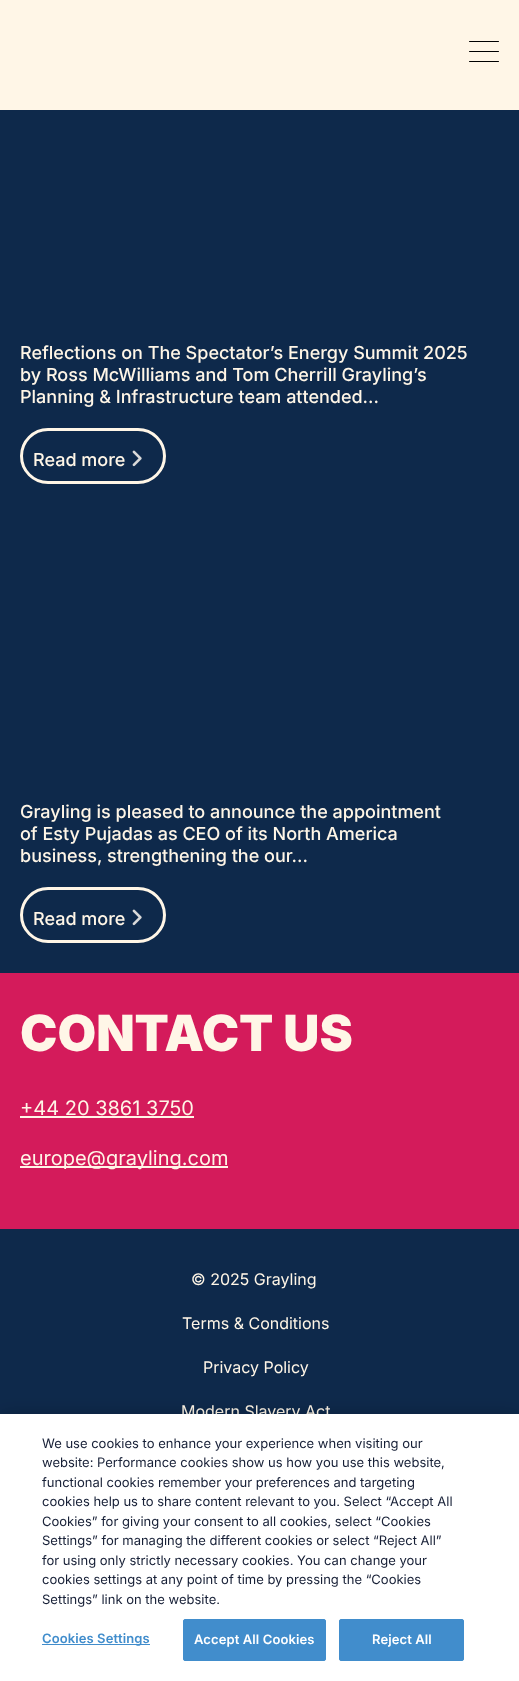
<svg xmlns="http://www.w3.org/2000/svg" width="519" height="1681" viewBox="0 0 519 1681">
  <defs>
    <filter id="blur1" x="-50%" y="-200%" width="200%" height="500%"><feGaussianBlur stdDeviation="9"/></filter>
  </defs>
  <rect width="100%" height="100%" fill="#0e294b"/>
  <rect x="0" y="0" width="519" height="110" fill="#fff6e7"/>
  <rect x="469" y="41" width="30" height="1" rx="0.5" fill="#000000"/>
  <rect x="469" y="51" width="30" height="1" rx="0.5" fill="#000000"/>
  <rect x="469" y="61" width="30" height="1" rx="0.5" fill="#000000"/>
  <text x="20" y="359" font-family="Inter" font-size="18" font-weight="500" fill="#fff6e7">Reflections on The Spectator’s Energy Summit 2025</text>
  <text x="20" y="381" font-family="Inter" font-size="18" font-weight="500" fill="#fff6e7">by Ross McWilliams and Tom Cherrill Grayling’s</text>
  <text x="20" y="403" font-family="Inter" font-size="18" font-weight="500" fill="#fff6e7">Planning &amp; Infrastructure team attended...</text>
  <rect x="21.5" y="429.5" width="143" height="53" rx="26.5" fill="none" stroke="#fff6e7" stroke-width="3"/>
  <text x="33" y="466" font-family="Inter" font-size="18" font-weight="500" fill="#fff6e7">Read more</text>
  <image x="132" y="450" width="10" height="17" href="img1.png"/>
  <text x="20" y="818" font-family="Inter" font-size="18" font-weight="500" fill="#fff6e7">Grayling is pleased to announce the appointment</text>
  <text x="20" y="840" font-family="Inter" font-size="18" font-weight="500" fill="#fff6e7">of Esty Pujadas as CEO of its North America</text>
  <text x="20" y="862" font-family="Inter" font-size="18" font-weight="500" fill="#fff6e7">business, strengthening the our...</text>
  <rect x="21.5" y="888.5" width="143" height="53" rx="26.5" fill="none" stroke="#fff6e7" stroke-width="3"/>
  <text x="33" y="925" font-family="Inter" font-size="18" font-weight="500" fill="#fff6e7">Read more</text>
  <image x="132" y="909" width="10" height="17" href="img1.png"/>
  <rect x="0" y="973" width="519" height="256" fill="#d41b5b"/>
  <text x="20" y="1051" font-family="Inter" font-size="50" font-weight="900" fill="#fff6e7">CONTACT US</text>
  <text x="20" y="1115" font-family="Inter" font-size="20" fill="#fff6e7">+44 20 3861 3750</text>
  <rect x="20" y="1116" width="174" height="2" fill="#fff6e7"/>
  <rect x="20" y="1166" width="208" height="2" fill="#fff6e7"/>
  <text x="20" y="1165" font-family="Inter" font-size="20" fill="#fff6e7">europe@grayling.com</text>
  <text x="191" y="1285" font-family="Inter" font-size="16" fill="#fff6e7">© 2025 Grayling</text>
  <text x="182" y="1329" font-family="Inter" font-size="16" fill="#fff6e7">Terms &amp; Conditions</text>
  <text x="203" y="1373" font-family="Inter" font-size="16" fill="#fff6e7">Privacy Policy</text>
  <text x="181" y="1417" font-family="Inter" font-size="16" fill="#fff6e7">Modern Slavery Act</text>
  <rect x="0" y="1414" width="519" height="267" fill="#000000" fill-opacity="0.2" filter="url(#blur1)"/>
  <rect x="0" y="1414" width="519" height="267" fill="#ffffff"/>
  <text x="42" y="1448" font-family="Inter" font-size="13" fill="#161f36">We use cookies to enhance your experience when visiting our</text>
  <text x="42" y="1467" font-family="Inter" font-size="13" fill="#161f36">website: Performance cookies show us how you use this website,</text>
  <text x="42" y="1487" font-family="Inter" font-size="13" fill="#161f36">functional cookies remember your preferences and targeting</text>
  <text x="42" y="1506" font-family="Inter" font-size="13" fill="#161f36">cookies help us to share content relevant to you. Select “Accept All</text>
  <text x="42" y="1526" font-family="Inter" font-size="13" fill="#161f36">Cookies” for giving your consent to all cookies, select “Cookies</text>
  <text x="42" y="1545" font-family="Inter" font-size="13" fill="#161f36">Settings” for managing the different cookies or select “Reject All”</text>
  <text x="42" y="1565" font-family="Inter" font-size="13" fill="#161f36">for using only strictly necessary cookies. You can change your</text>
  <text x="42" y="1584" font-family="Inter" font-size="13" fill="#161f36">cookies settings at any point of time by pressing the “Cookies</text>
  <text x="42" y="1604" font-family="Inter" font-size="13" fill="#161f36">Settings” link on the website.</text>
  <rect x="42" y="1644" width="108" height="1" fill="#418dcc"/>
  <text x="42" y="1643" font-family="Inter" font-size="13" font-weight="600" letter-spacing="0.1" fill="#418dcc">Cookies Settings</text>
  <rect x="183.5" y="1619.5" width="142" height="41" rx="1.5" fill="#418dcc" stroke="#418dcc"/>
  <text x="194" y="1644" font-family="Inter" font-size="13" font-weight="600" letter-spacing="0.1" fill="#ffffff">Accept All Cookies</text>
  <rect x="339.5" y="1619.5" width="124" height="41" rx="1.5" fill="#418dcc" stroke="#418dcc"/>
  <text x="372" y="1644" font-family="Inter" font-size="13" font-weight="600" letter-spacing="0.1" fill="#ffffff">Reject All</text>
</svg>
